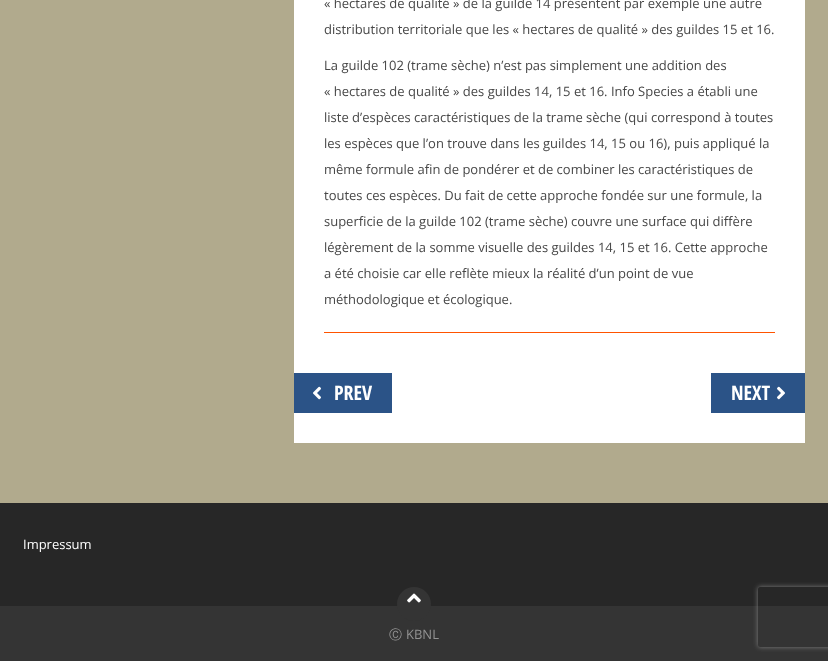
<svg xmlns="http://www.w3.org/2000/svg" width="828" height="661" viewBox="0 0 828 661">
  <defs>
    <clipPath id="clip1"><path d="M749 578H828V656H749ZM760 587H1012C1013 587 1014 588 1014 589V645C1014 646 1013 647 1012 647H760C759 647 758 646 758 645V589C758 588 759 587 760 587Z" clip-rule="evenodd"/></clipPath>
    <filter id="blur1" x="-50%" y="-200%" width="200%" height="500%"><feGaussianBlur stdDeviation="2.5"/></filter>
  </defs>
  <rect width="100%" height="100%" fill="#b1aa8d"/>
  <rect x="294" y="0" width="511" height="443" fill="#ffffff"/>
  <text x="324" y="8" font-family="Open Sans" font-size="13" fill="#474747">« hectares de qualité » de la guilde 14 présentent par exemple une autre</text>
  <text x="324" y="34" font-family="Open Sans" font-size="13" fill="#474747">distribution territoriale que les « hectares de qualité » des guildes 15 et 16.</text>
  <text x="324" y="70" font-family="Open Sans" font-size="13" fill="#474747">La guilde 102 (trame sèche) n’est pas simplement une addition des</text>
  <text x="324" y="96" font-family="Open Sans" font-size="13" fill="#474747">« hectares de qualité » des guildes 14, 15 et 16. Info Species a établi une</text>
  <text x="324" y="122" font-family="Open Sans" font-size="13" fill="#474747">liste d’espèces caractéristiques de la trame sèche (qui correspond à toutes</text>
  <text x="324" y="148" font-family="Open Sans" font-size="13" fill="#474747">les espèces que l’on trouve dans les guildes 14, 15 ou 16), puis appliqué la</text>
  <text x="324" y="174" font-family="Open Sans" font-size="13" fill="#474747">même formule afin de pondérer et de combiner les caractéristiques de</text>
  <text x="324" y="200" font-family="Open Sans" font-size="13" fill="#474747">toutes ces espèces. Du fait de cette approche fondée sur une formule, la</text>
  <text x="324" y="226" font-family="Open Sans" font-size="13" fill="#474747">superficie de la guilde 102 (trame sèche) couvre une surface qui diffère</text>
  <text x="324" y="252" font-family="Open Sans" font-size="13" fill="#474747">légèrement de la somme visuelle des guildes 14, 15 et 16. Cette approche</text>
  <text x="324" y="278" font-family="Open Sans" font-size="13" fill="#474747">a été choisie car elle reflète mieux la réalité d’un point de vue</text>
  <text x="324" y="304" font-family="Open Sans" font-size="13" fill="#474747">méthodologique et écologique.</text>
  <rect x="324" y="332" width="451" height="1" fill="#ff5400"/>
  <rect x="294" y="373" width="98" height="40" fill="#2b5387"/>
  <image x="313" y="386" width="8" height="14" href="img1.png"/>
  <text x="334" y="400" font-family="Open Sans Condensed" font-size="20" font-weight="bold" fill="#ffffff">PREV</text>
  <rect x="711" y="373" width="94" height="40" fill="#2b5387"/>
  <text x="731" y="400" font-family="Open Sans Condensed" font-size="20" font-weight="bold" fill="#ffffff">NEXT</text>
  <image x="777" y="386" width="8" height="14" href="img2.png"/>
  <rect x="0" y="606" width="828" height="55" fill="#343434"/>
  <rect x="0" y="503" width="828" height="103" fill="#272727"/>
  <text x="23" y="549" font-family="Open Sans" font-size="13" fill="#ffffff">Impressum</text>
  <circle cx="414" cy="604" r="17" fill="#343434"/>
  <image x="407" y="593" width="14" height="10" href="img3.png"/>
  <text x="389" y="639" font-family="WenQuanYi Zen Hei" font-size="13" font-weight="500" fill="#939393">Ⓒ</text>
  <text x="406" y="639" font-family="Open Sans" font-size="13" fill="#939393">KBNL</text>
  <g clip-path="url(#clip1)">
    <rect x="758" y="587" width="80" height="60" rx="2" fill="#808080" filter="url(#blur1)"/>
  </g>
</svg>
